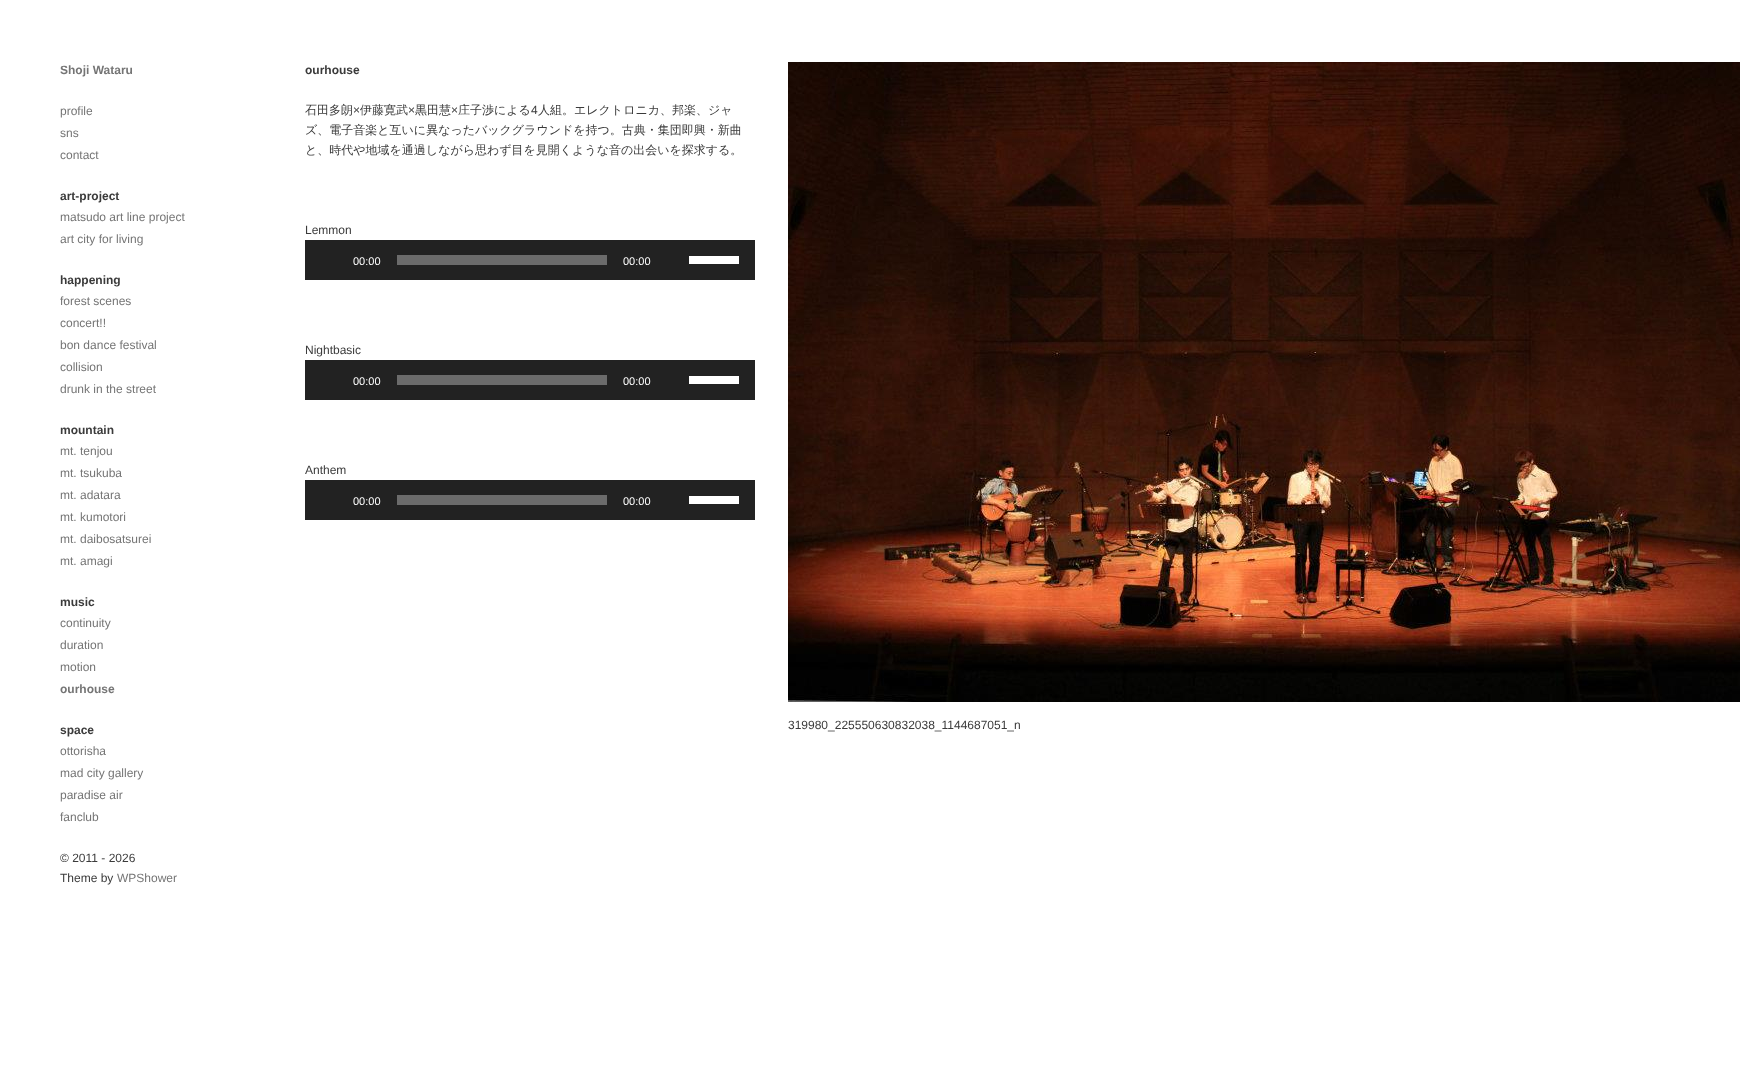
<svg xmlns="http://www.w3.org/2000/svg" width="1740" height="1066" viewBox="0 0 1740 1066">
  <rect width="100%" height="100%" fill="#ffffff"/>
  <text x="60" y="74" font-family="Liberation Sans" font-size="12" font-weight="bold" fill="#757575">Shoji Wataru</text>
  <text x="60" y="115" font-family="Liberation Sans" font-size="12" fill="#757575">profile</text>
  <text x="60" y="137" font-family="Liberation Sans" font-size="12" fill="#757575">sns</text>
  <text x="60" y="159" font-family="Liberation Sans" font-size="12" fill="#757575">contact</text>
  <text x="60" y="200" font-family="Liberation Sans" font-size="12" font-weight="bold" fill="#3b3b3b">art-project</text>
  <text x="60" y="221" font-family="Liberation Sans" font-size="12" fill="#757575">matsudo art line project</text>
  <text x="60" y="243" font-family="Liberation Sans" font-size="12" fill="#757575">art city for living</text>
  <text x="60" y="284" font-family="Liberation Sans" font-size="12" font-weight="bold" fill="#3b3b3b">happening</text>
  <text x="60" y="305" font-family="Liberation Sans" font-size="12" fill="#757575">forest scenes</text>
  <text x="60" y="327" font-family="Liberation Sans" font-size="12" fill="#757575">concert!!</text>
  <text x="60" y="349" font-family="Liberation Sans" font-size="12" fill="#757575">bon dance festival</text>
  <text x="60" y="371" font-family="Liberation Sans" font-size="12" fill="#757575">collision</text>
  <text x="60" y="393" font-family="Liberation Sans" font-size="12" fill="#757575">drunk in the street</text>
  <text x="60" y="434" font-family="Liberation Sans" font-size="12" font-weight="bold" fill="#3b3b3b">mountain</text>
  <text x="60" y="455" font-family="Liberation Sans" font-size="12" fill="#757575">mt. tenjou</text>
  <text x="60" y="477" font-family="Liberation Sans" font-size="12" fill="#757575">mt. tsukuba</text>
  <text x="60" y="499" font-family="Liberation Sans" font-size="12" fill="#757575">mt. adatara</text>
  <text x="60" y="521" font-family="Liberation Sans" font-size="12" fill="#757575">mt. kumotori</text>
  <text x="60" y="543" font-family="Liberation Sans" font-size="12" fill="#757575">mt. daibosatsurei</text>
  <text x="60" y="565" font-family="Liberation Sans" font-size="12" fill="#757575">mt. amagi</text>
  <text x="60" y="606" font-family="Liberation Sans" font-size="12" font-weight="bold" fill="#3b3b3b">music</text>
  <text x="60" y="627" font-family="Liberation Sans" font-size="12" fill="#757575">continuity</text>
  <text x="60" y="649" font-family="Liberation Sans" font-size="12" fill="#757575">duration</text>
  <text x="60" y="671" font-family="Liberation Sans" font-size="12" fill="#757575">motion</text>
  <text x="60" y="693" font-family="Liberation Sans" font-size="12" font-weight="bold" fill="#757575">ourhouse</text>
  <text x="60" y="734" font-family="Liberation Sans" font-size="12" font-weight="bold" fill="#3b3b3b">space</text>
  <text x="60" y="755" font-family="Liberation Sans" font-size="12" fill="#757575">ottorisha</text>
  <text x="60" y="777" font-family="Liberation Sans" font-size="12" fill="#757575">mad city gallery</text>
  <text x="60" y="799" font-family="Liberation Sans" font-size="12" fill="#757575">paradise air</text>
  <text x="60" y="821" font-family="Liberation Sans" font-size="12" fill="#757575">fanclub</text>
  <text x="60" y="862" font-family="Liberation Sans" font-size="12" fill="#3b3b3b">© 2011 - 2026</text>
  <text x="60" y="882" font-family="Liberation Sans" font-size="12" fill="#3b3b3b">Theme by</text>
  <text x="117" y="882" font-family="Liberation Sans" font-size="12" fill="#757575">WPShower</text>
  <text x="305" y="74" font-family="Liberation Sans" font-size="12" font-weight="bold" fill="#3b3b3b">ourhouse</text>
  <text x="305" y="114" font-family="WenQuanYi Zen Hei" font-size="12" font-weight="500" fill="#3b3b3b">石田多朗</text>
  <text x="353" y="114" font-family="Liberation Sans" font-size="12" fill="#3b3b3b">×</text>
  <text x="360" y="114" font-family="WenQuanYi Zen Hei" font-size="12" font-weight="500" fill="#3b3b3b">伊藤寛武</text>
  <text x="408" y="114" font-family="Liberation Sans" font-size="12" fill="#3b3b3b">×</text>
  <text x="415" y="114" font-family="WenQuanYi Zen Hei" font-size="12" font-weight="500" fill="#3b3b3b">黒田慧</text>
  <text x="451" y="114" font-family="Liberation Sans" font-size="12" fill="#3b3b3b">×</text>
  <text x="458" y="114" font-family="WenQuanYi Zen Hei" font-size="12" font-weight="500" fill="#3b3b3b">庄子渉による</text>
  <text x="531" y="114" font-family="Liberation Sans" font-size="12" fill="#3b3b3b">4</text>
  <text x="538" y="114" font-family="WenQuanYi Zen Hei" font-size="12" font-weight="500" fill="#3b3b3b">人組。エレクトロニカ、邦楽、ジャ</text>
  <text x="305" y="134" font-family="WenQuanYi Zen Hei" font-size="12" font-weight="500" fill="#3b3b3b">ズ、電子音楽と互いに異なったバックグラウンドを持つ。古典・集団即興・新曲</text>
  <text x="305" y="154" font-family="WenQuanYi Zen Hei" font-size="12" font-weight="500" fill="#3b3b3b">と、時代や地域を通過しながら思わず目を見開くような音の出会いを探求する。</text>
  <text x="305" y="234" font-family="Liberation Sans" font-size="12" fill="#3b3b3b">Lemmon</text>
  <rect x="305" y="240" width="450" height="40" fill="#222222"/>
  <text x="353" y="265" font-family="Liberation Sans" font-size="11" fill="#ffffff">00:00</text>
  <rect x="397" y="255" width="210" height="10" fill="#6b6b6b"/>
  <text x="623" y="265" font-family="Liberation Sans" font-size="11" fill="#ffffff">00:00</text>
  <rect x="689" y="256" width="50" height="8" fill="#ffffff"/>
  <text x="305" y="354" font-family="Liberation Sans" font-size="12" fill="#3b3b3b">Nightbasic</text>
  <rect x="305" y="360" width="450" height="40" fill="#222222"/>
  <text x="353" y="385" font-family="Liberation Sans" font-size="11" fill="#ffffff">00:00</text>
  <rect x="397" y="375" width="210" height="10" fill="#6b6b6b"/>
  <text x="623" y="385" font-family="Liberation Sans" font-size="11" fill="#ffffff">00:00</text>
  <rect x="689" y="376" width="50" height="8" fill="#ffffff"/>
  <text x="305" y="474" font-family="Liberation Sans" font-size="12" fill="#3b3b3b">Anthem</text>
  <rect x="305" y="480" width="450" height="40" fill="#222222"/>
  <text x="353" y="505" font-family="Liberation Sans" font-size="11" fill="#ffffff">00:00</text>
  <rect x="397" y="495" width="210" height="10" fill="#6b6b6b"/>
  <text x="623" y="505" font-family="Liberation Sans" font-size="11" fill="#ffffff">00:00</text>
  <rect x="689" y="496" width="50" height="8" fill="#ffffff"/>
  <image x="788" y="62" width="952" height="640" href="img1.png"/>
  <text x="788" y="729" font-family="Liberation Sans" font-size="12" fill="#3b3b3b">319980_225550630832038_1144687051_n</text>
</svg>
